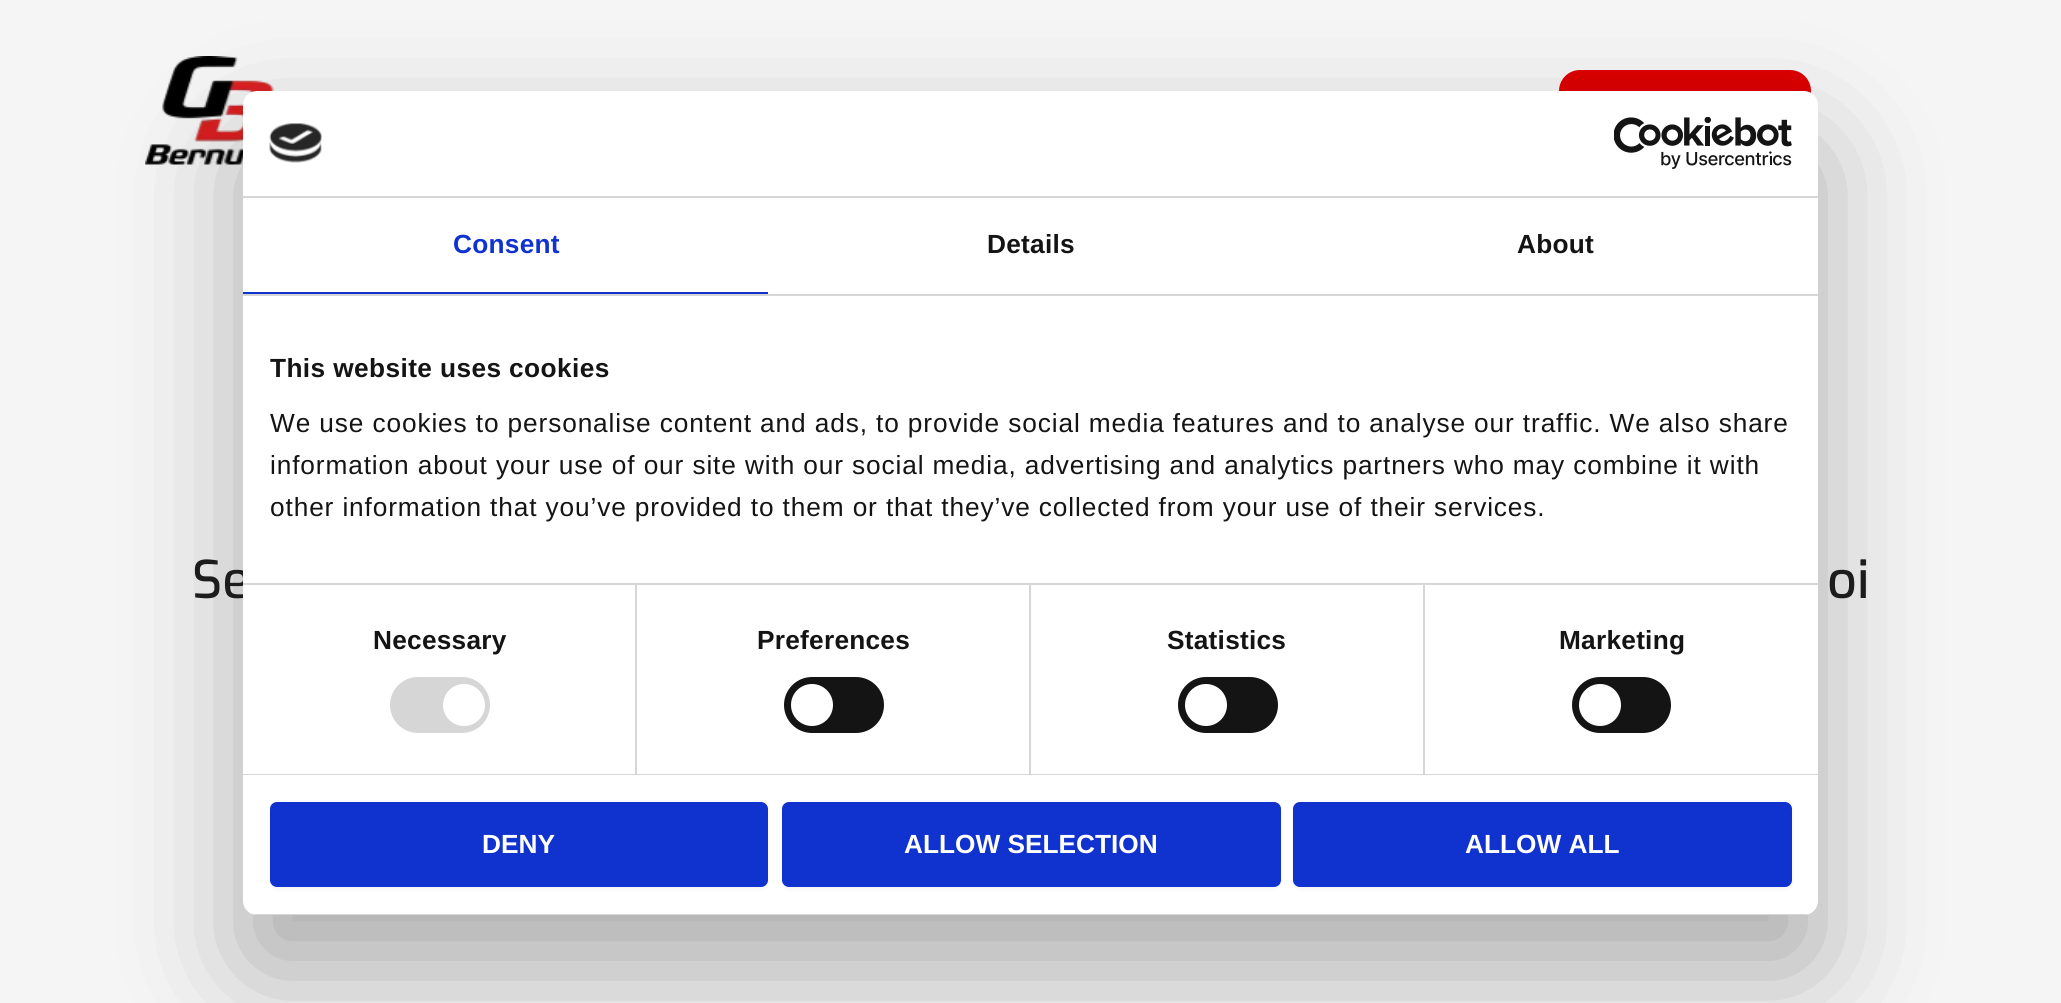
import math
import cairocffi as cairo

surface = cairo.ImageSurface(cairo.FORMAT_RGB24, 2061, 1003)
cr = cairo.Context(surface)
options = cairo.FontOptions()
options.set_hint_metrics(cairo.HINT_METRICS_OFF)
options.set_hint_style(cairo.HINT_STYLE_NONE)
cr.set_font_options(options)
cr.set_miter_limit(4)


def use_color(code):
    cr.set_source_rgb(*(v / 255 for v in bytes.fromhex(code[-6:])))


def spaced_text(x, y, s, letter, word):
    cr.move_to(x, y)
    for ch in s:
        cr.show_text(ch)
        cr.rel_move_to(letter + word * (ch == ' '), 0)


def round_rect(x, y, w, h, r):
    cr.new_sub_path()
    for i, (u, v) in enumerate([(x + w - r, y + h - r), (x + r, y + h - r), (x + r, y + r), (x + w - r, y + r)]):
        cr.arc(u, v, r, i * math.pi / 2, (i + 1) * math.pi / 2)
    cr.close_path()


def shadow(x, y, w, h, r, blur, alpha):
    cr.push_group_with_content(cairo.CONTENT_ALPHA)
    cr.set_operator(cairo.OPERATOR_SOURCE)
    for i in range(15, -16, -2):
        e = blur * i / 6
        if min(w, h) + 2 * e > 0:
            cr.set_source_rgba(0, 0, 0, alpha * math.erfc((i - 1) / 8.5) / 2)
            round_rect(x - e, y - e, w + 2 * e, h + 2 * e, max(0, min(r + e + blur * .6, min(w, h) / 2 + e)))
            cr.fill()
    cr.mask(cr.pop_group())


def picture(path, x, y, w, h):
    cr.save()
    cr.set_source_surface(cairo.ImageSurface.create_from_png(path), x, y)
    cr.rectangle(x, y, w, h)
    cr.fill()
    cr.restore()


use_color("#f5f5f5")
cr.paint()
picture("img3.png", 145, 56, 130, 109)
use_color("#dd0000")
round_rect(1559, 70, 252, 81, 21)
cr.fill()
use_color("#000000")
shadow(243, 147, 1575, 824, 14, 59.5, 0.3)
cr.select_font_face("Exo Medium")
cr.set_font_size(52)
use_color("#1c1c1c")
cr.move_to(192, 598)
cr.show_text("Se")
use_color("#ffffff")
round_rect(243, 91, 1575, 824, 14)
cr.fill()
use_color("#d6d6d6")
cr.rectangle(243, 196, 1575, 2)
cr.fill()
picture("img1.png", 269, 123, 53, 40)
picture("img2.png", 1614, 117, 178, 52)
cr.rectangle(243, 294, 1575, 2)
cr.fill()
use_color("#1032cf")
cr.rectangle(243, 292, 525, 2)
cr.fill()
cr.select_font_face("Liberation Sans", cairo.FONT_SLANT_NORMAL, cairo.FONT_WEIGHT_BOLD)
cr.set_font_size(26.25)
spaced_text(453, 253, "Consent", 0.25, 0)
use_color("#141414")
spaced_text(987, 253, "Details", 0.25, 0)
spaced_text(1517, 253, "About", 0.25, 0)
use_color("#d6d6d6")
cr.rectangle(243, 583, 1575, 2)
cr.fill()
use_color("#141414")
spaced_text(270, 377, "This website uses cookies", 0.4, 0)
cr.select_font_face("Liberation Sans")
spaced_text(270, 432, "We use cookies to personalise content and ads, to provide social media features and to analyse our traffic. We also share", 0.88, 0)
spaced_text(270, 474, "information about your use of our site with our social media, advertising and analytics partners who may combine it with", 0.88, 0)
spaced_text(270, 516, "other information that you’ve provided to them or that they’ve collected from your use of their services.", 0.88, 0)
use_color("#d6d6d6")
cr.rectangle(243, 774, 1575, 1)
cr.fill()
cr.rectangle(635, 585, 2, 189)
cr.fill()
cr.select_font_face("Liberation Sans", cairo.FONT_SLANT_NORMAL, cairo.FONT_WEIGHT_BOLD)
use_color("#141414")
spaced_text(373, 649, "Necessary", 0.25, 0)
use_color("#d6d6d6")
round_rect(390, 677, 100, 56, 28)
cr.fill()
use_color("#ffffff")
cr.arc(464, 705, 21, 0, 2 * math.pi)
cr.fill()
use_color("#d6d6d6")
cr.rectangle(1029, 585, 2, 189)
cr.fill()
use_color("#141414")
spaced_text(757, 649, "Preferences", 0.25, 0)
round_rect(784, 677, 100, 56, 28)
cr.fill()
use_color("#ffffff")
cr.arc(812, 705, 21, 0, 2 * math.pi)
cr.fill()
use_color("#d6d6d6")
cr.rectangle(1423, 585, 2, 189)
cr.fill()
use_color("#141414")
spaced_text(1167, 649, "Statistics", 0.25, 0)
round_rect(1178, 677, 100, 56, 28)
cr.fill()
use_color("#ffffff")
cr.arc(1206, 705, 21, 0, 2 * math.pi)
cr.fill()
use_color("#141414")
spaced_text(1559, 649, "Marketing", 0.25, 0)
round_rect(1572, 677, 99, 56, 28)
cr.fill()
use_color("#ffffff")
cr.arc(1600, 705, 21, 0, 2 * math.pi)
cr.fill()
cr.save()
round_rect(243, 91, 1575, 824, 14)
cr.clip()
use_color("#d6d6d6")
cr.rectangle(252, 914, 1557, 1)
cr.fill()
cr.restore()
use_color("#000000")
shadow(270, 803, 498, 86, 7, 2, 0.05)
use_color("#1032cf")
round_rect(272, 804, 494, 81, 5)
cr.fill_preserve()
cr.set_line_width(4)
cr.stroke()
use_color("#ffffff")
cr.move_to(482, 853)
cr.show_text("DENY")
use_color("#000000")
shadow(782, 803, 499, 86, 7, 2, 0.05)
use_color("#1032cf")
round_rect(784, 804, 495, 81, 5)
cr.fill_preserve()
cr.stroke()
use_color("#ffffff")
cr.move_to(904, 853)
cr.show_text("ALLOW SELECTION")
use_color("#000000")
shadow(1293, 803, 499, 86, 7, 2, 0.05)
use_color("#1032cf")
round_rect(1295, 804, 495, 81, 5)
cr.fill_preserve()
cr.stroke()
use_color("#ffffff")
cr.move_to(1465, 853)
cr.show_text("ALLOW ALL")
cr.select_font_face("Exo Medium")
cr.set_font_size(52)
use_color("#1c1c1c")
cr.move_to(1827, 598)
cr.show_text("oi")
surface.write_to_png("result.png")
